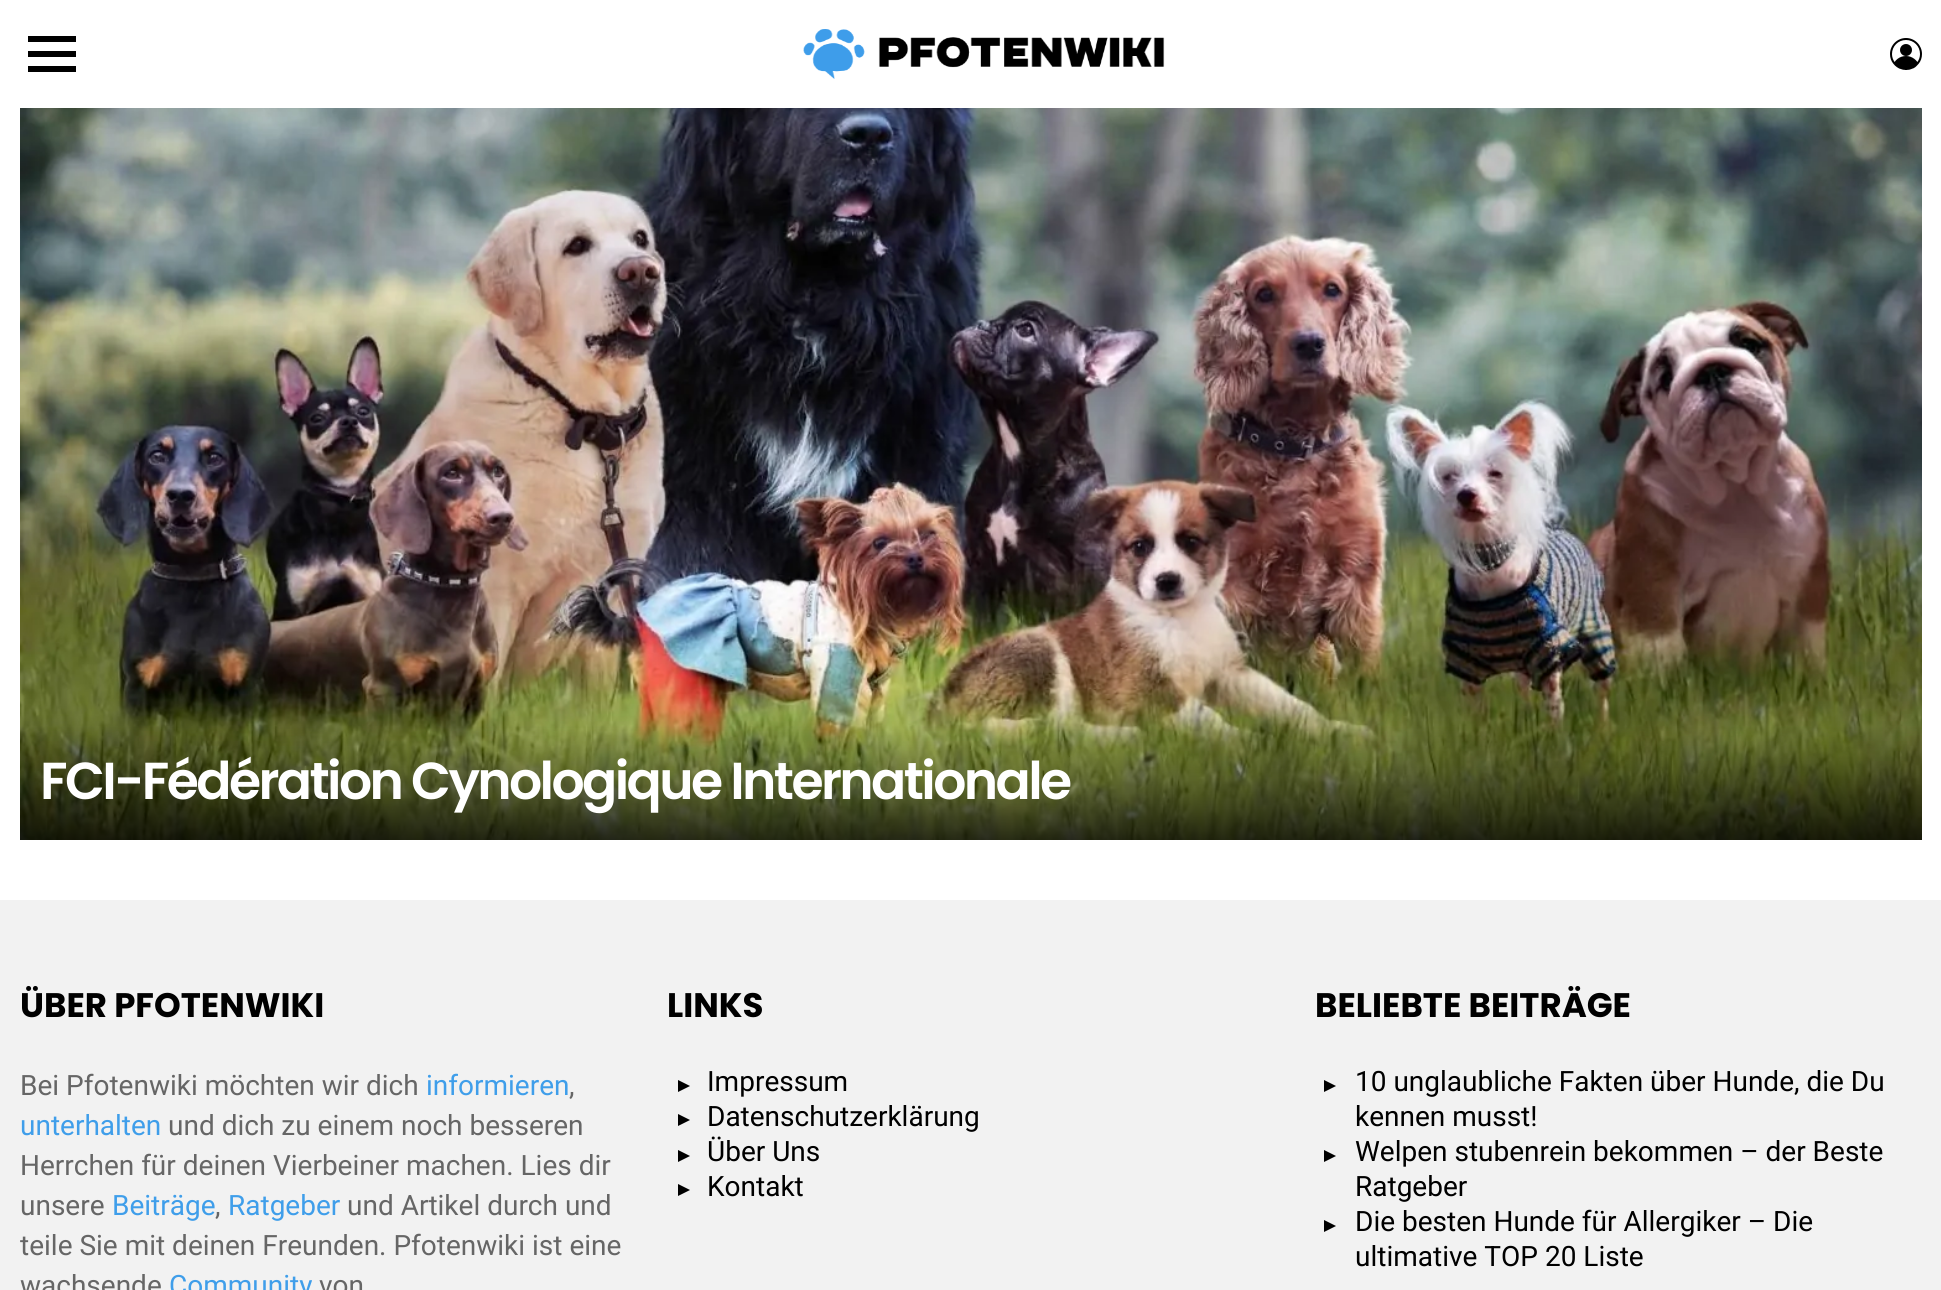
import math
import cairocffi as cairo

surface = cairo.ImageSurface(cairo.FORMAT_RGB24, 1941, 1290)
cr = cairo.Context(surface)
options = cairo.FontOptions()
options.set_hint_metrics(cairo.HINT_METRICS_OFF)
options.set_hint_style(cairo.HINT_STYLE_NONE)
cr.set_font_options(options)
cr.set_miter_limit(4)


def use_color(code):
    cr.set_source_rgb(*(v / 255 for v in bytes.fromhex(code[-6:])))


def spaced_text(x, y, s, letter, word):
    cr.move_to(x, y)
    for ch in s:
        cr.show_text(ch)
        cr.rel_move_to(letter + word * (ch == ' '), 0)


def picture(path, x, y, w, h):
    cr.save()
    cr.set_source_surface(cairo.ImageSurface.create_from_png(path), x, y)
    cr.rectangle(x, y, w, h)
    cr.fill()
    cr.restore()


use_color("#ffffff")
cr.paint()
use_color("#000000")
cr.new_path()
cr.move_to(28, 36)
cr.line_to(76, 36)
cr.line_to(76, 42)
cr.line_to(28, 42)
cr.close_path()
cr.move_to(28, 51)
cr.line_to(76, 51)
cr.line_to(76, 57)
cr.line_to(28, 57)
cr.close_path()
cr.move_to(28, 66)
cr.line_to(76, 66)
cr.line_to(76, 72)
cr.line_to(28, 72)
cr.close_path()
cr.fill()
picture("img1.png", 803, 29, 362, 50)
picture("img2.png", 1890, 38, 32, 32)
picture("img3.png", 20, 108, 1902, 732)
cr.select_font_face("Poppins SemiBold")
cr.set_font_size(52)
use_color("#ffffff")
spaced_text(40, 799, "FCI-Fédération Cynologique Internationale", -2.6, 0)
use_color("#f2f2f2")
cr.rectangle(0, 900, 1941, 390)
cr.fill()
cr.select_font_face("Poppins", cairo.FONT_SLANT_NORMAL, cairo.FONT_WEIGHT_BOLD)
cr.set_font_size(34)
use_color("#000000")
cr.move_to(20, 1017)
cr.show_text("ÜBER PFOTENWIKI")
cr.select_font_face("Roboto")
cr.set_font_size(28)
use_color("#666666")
cr.move_to(20, 1095)
cr.show_text("Bei Pfotenwiki möchten wir dich")
use_color("#3f9eea")
cr.move_to(426, 1095)
cr.show_text("informieren")
use_color("#666666")
cr.move_to(569, 1095)
cr.show_text(",")
use_color("#3f9eea")
cr.move_to(20, 1135)
cr.show_text("unterhalten")
use_color("#666666")
cr.move_to(168, 1135)
cr.show_text("und dich zu einem noch besseren")
cr.move_to(20, 1175)
cr.show_text("Herrchen für deinen Vierbeiner machen. Lies dir")
cr.move_to(20, 1215)
cr.show_text("unsere")
use_color("#3f9eea")
cr.move_to(112, 1215)
cr.show_text("Beiträge")
use_color("#666666")
cr.move_to(215, 1215)
cr.show_text(",")
use_color("#3f9eea")
cr.move_to(228, 1215)
cr.show_text("Ratgeber")
use_color("#666666")
cr.move_to(347, 1215)
cr.show_text("und Artikel durch und")
cr.move_to(20, 1255)
cr.show_text("teile Sie mit deinen Freunden. Pfotenwiki ist eine")
cr.move_to(20, 1295)
cr.show_text("wachsende")
use_color("#3f9eea")
cr.move_to(169, 1295)
cr.show_text("Community")
use_color("#666666")
cr.move_to(319, 1295)
cr.show_text("von")
cr.select_font_face("Poppins", cairo.FONT_SLANT_NORMAL, cairo.FONT_WEIGHT_BOLD)
cr.set_font_size(34)
use_color("#000000")
cr.move_to(667, 1017)
cr.show_text("LINKS")
cr.new_path()
cr.move_to(690, 1086)
cr.line_to(678, 1080)
cr.line_to(678, 1092)
cr.close_path()
cr.fill()
cr.select_font_face("Roboto")
cr.set_font_size(28)
cr.move_to(707, 1091)
cr.show_text("Impressum")
cr.new_path()
cr.move_to(690, 1120)
cr.line_to(678, 1114)
cr.line_to(678, 1126)
cr.close_path()
cr.fill()
cr.move_to(707, 1126)
cr.show_text("Datenschutzerklärung")
cr.new_path()
cr.move_to(690, 1156)
cr.line_to(678, 1150)
cr.line_to(678, 1162)
cr.close_path()
cr.fill()
cr.move_to(707, 1161)
cr.show_text("Über Uns")
cr.new_path()
cr.move_to(690, 1190)
cr.line_to(678, 1184)
cr.line_to(678, 1196)
cr.close_path()
cr.fill()
cr.move_to(707, 1196)
cr.show_text("Kontakt")
cr.select_font_face("Poppins", cairo.FONT_SLANT_NORMAL, cairo.FONT_WEIGHT_BOLD)
cr.set_font_size(34)
cr.move_to(1315, 1017)
cr.show_text("BELIEBTE BEITRÄGE")
cr.new_path()
cr.move_to(1336, 1086)
cr.line_to(1324, 1080)
cr.line_to(1324, 1092)
cr.close_path()
cr.fill()
cr.select_font_face("Roboto")
cr.set_font_size(28)
cr.move_to(1355, 1091)
cr.show_text("10 unglaubliche Fakten über Hunde, die Du")
cr.move_to(1355, 1126)
cr.show_text("kennen musst!")
cr.new_path()
cr.move_to(1336, 1156)
cr.line_to(1324, 1150)
cr.line_to(1324, 1162)
cr.close_path()
cr.fill()
cr.move_to(1355, 1161)
cr.show_text("Welpen stubenrein bekommen – der Beste")
cr.move_to(1355, 1196)
cr.show_text("Ratgeber")
cr.new_path()
cr.move_to(1336, 1226)
cr.line_to(1324, 1220)
cr.line_to(1324, 1232)
cr.close_path()
cr.fill()
cr.move_to(1355, 1231)
cr.show_text("Die besten Hunde für Allergiker – Die")
cr.move_to(1355, 1266)
cr.show_text("ultimative TOP 20 Liste")
surface.write_to_png("result.png")
